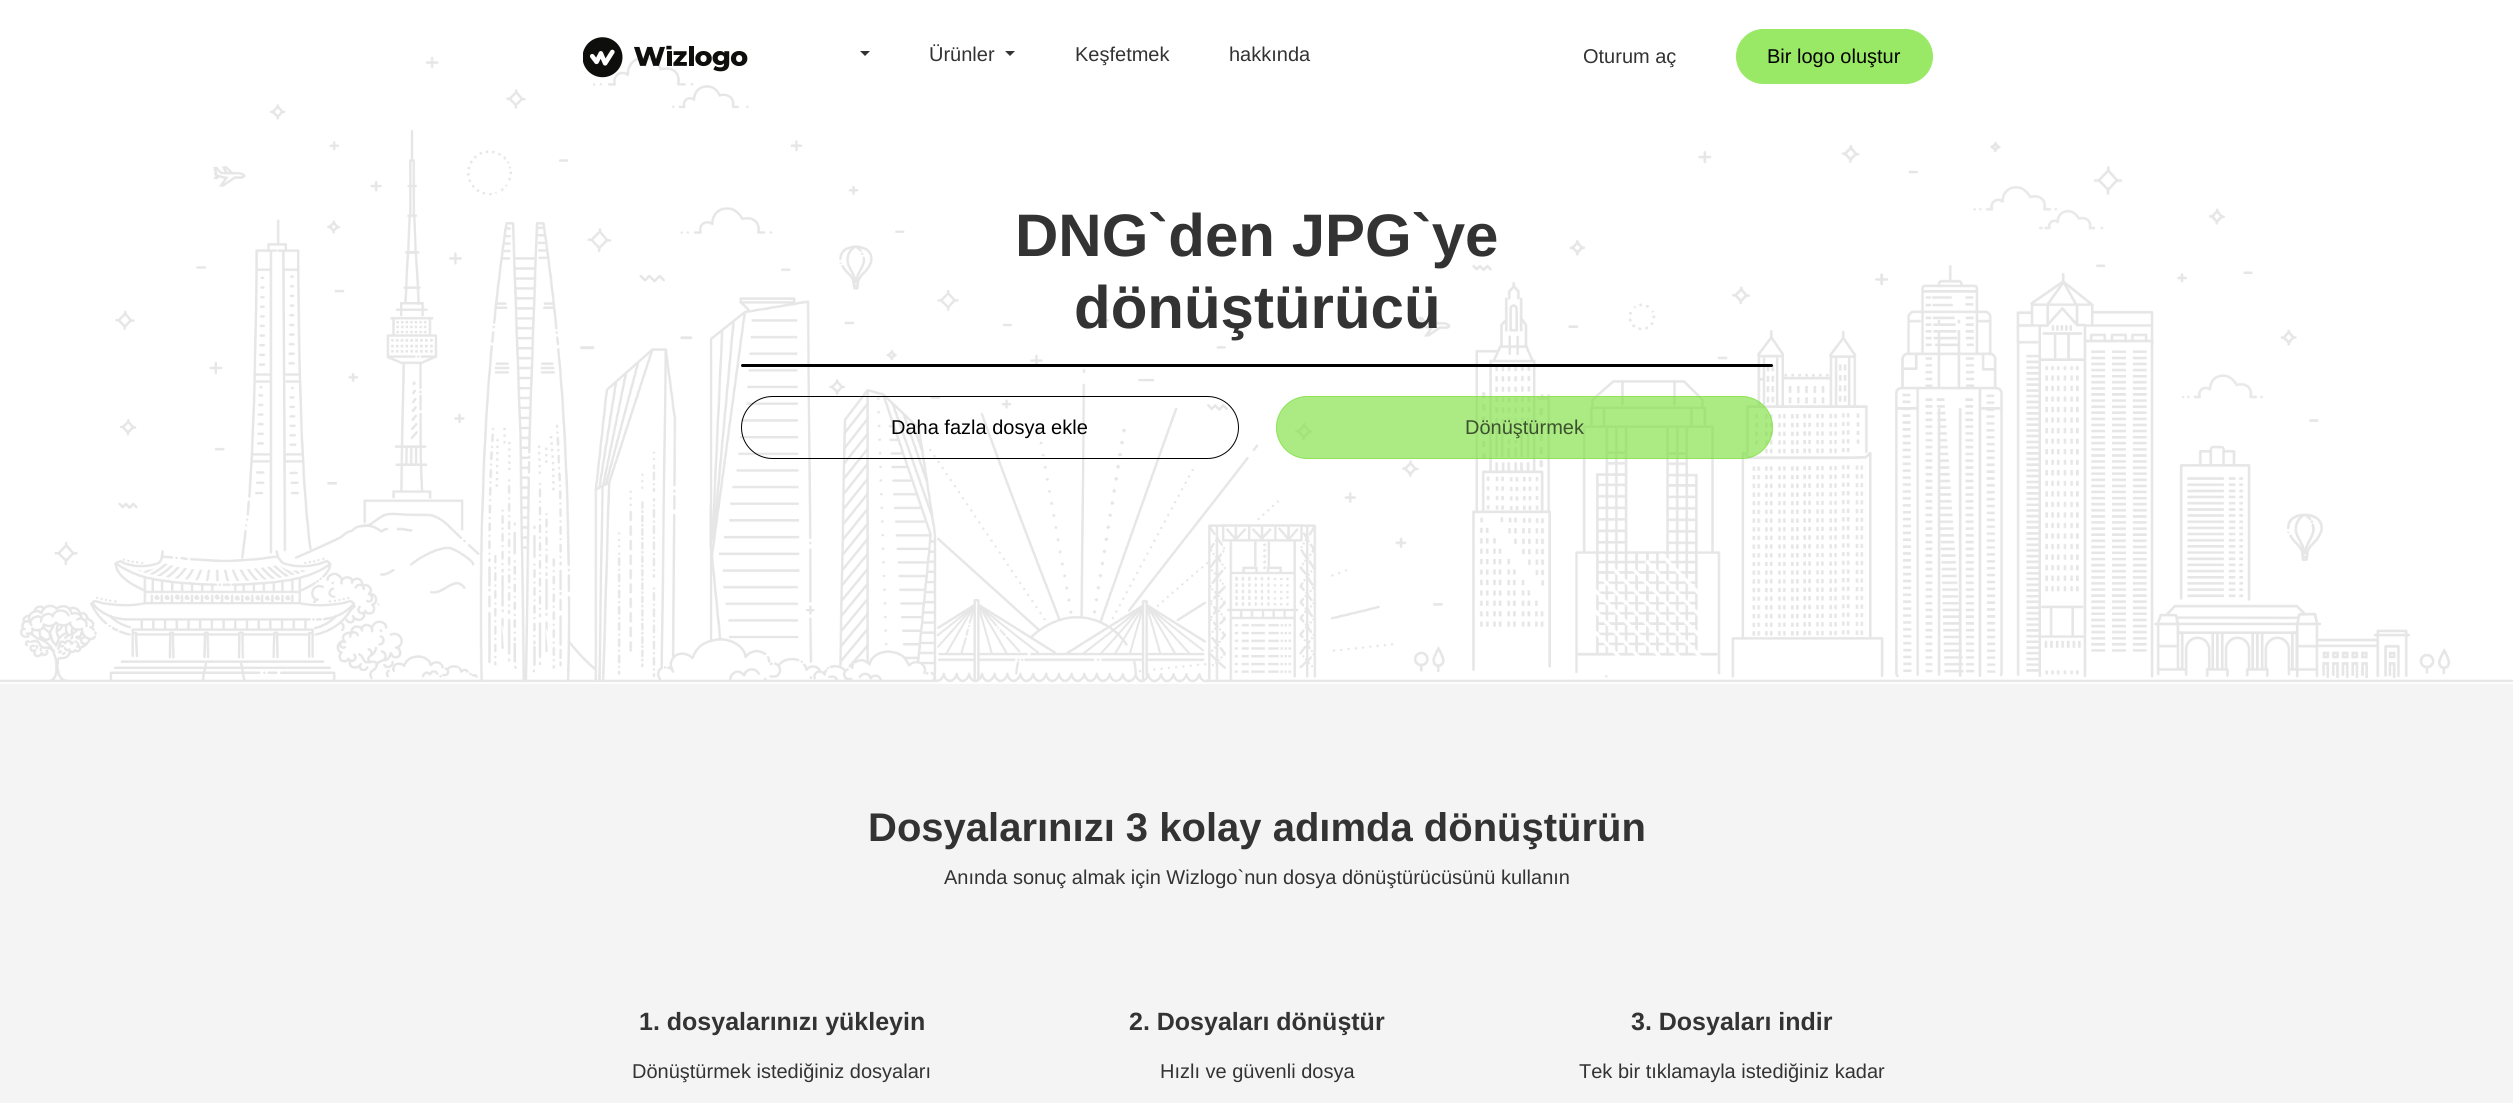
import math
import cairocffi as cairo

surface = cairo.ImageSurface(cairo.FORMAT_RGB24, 2513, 1103)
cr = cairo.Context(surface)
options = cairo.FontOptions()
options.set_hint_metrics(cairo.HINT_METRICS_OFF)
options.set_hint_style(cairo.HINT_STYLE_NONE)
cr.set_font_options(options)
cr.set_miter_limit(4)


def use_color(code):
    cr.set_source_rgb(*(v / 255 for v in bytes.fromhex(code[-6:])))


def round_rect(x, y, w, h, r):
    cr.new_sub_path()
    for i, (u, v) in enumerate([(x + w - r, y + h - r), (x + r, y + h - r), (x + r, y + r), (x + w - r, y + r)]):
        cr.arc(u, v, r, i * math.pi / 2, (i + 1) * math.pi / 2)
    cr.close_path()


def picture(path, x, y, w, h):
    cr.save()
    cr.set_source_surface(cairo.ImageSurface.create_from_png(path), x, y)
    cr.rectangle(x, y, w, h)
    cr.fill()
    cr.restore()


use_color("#ffffff")
cr.paint()
picture("img2.png", 0, 56, 2513, 627)
picture("img1.png", 583, 37, 165, 41)
use_color("#333333")
cr.new_path()
cr.move_to(860, 51)
cr.line_to(870, 51)
cr.line_to(865, 56)
cr.close_path()
cr.fill()
cr.select_font_face("Liberation Sans")
cr.set_font_size(20)
cr.move_to(929, 61)
cr.show_text("Ürünler")
cr.new_path()
cr.move_to(1005, 51)
cr.line_to(1015, 51)
cr.line_to(1010, 56)
cr.close_path()
cr.fill()
cr.move_to(1075, 61)
cr.show_text("Keşfetmek")
cr.move_to(1229, 61)
cr.show_text("hakkında")
cr.move_to(1583, 63)
cr.show_text("Oturum aç")
use_color("#99e966")
round_rect(1736.5, 29.5, 196, 54, 27)
cr.fill_preserve()
cr.set_line_width(1)
cr.stroke()
use_color("#000000")
cr.move_to(1767, 63)
cr.show_text("Bir logo oluştur")
cr.select_font_face("Liberation Sans", cairo.FONT_SLANT_NORMAL, cairo.FONT_WEIGHT_BOLD)
cr.set_font_size(60)
use_color("#333333")
cr.move_to(1015, 256)
cr.show_text("DNG`den JPG`ye")
cr.move_to(1074, 328)
cr.show_text("dönüştürücü")
use_color("#000000")
round_rect(741, 364, 1032, 3, 1.5)
cr.fill()
round_rect(741.5, 396.5, 497, 62, 31)
cr.stroke()
cr.select_font_face("Liberation Sans")
cr.set_font_size(20)
cr.move_to(891, 434)
cr.show_text("Daha fazla dosya ekle")
cr.set_source_rgba(0.502, 0.882, 0.259, 0.65)
round_rect(1276, 396, 497, 63, 31.5)
cr.fill()
round_rect(1276.5, 396.5, 496, 62, 31)
cr.stroke()
use_color("#3c522e")
cr.move_to(1465, 434)
cr.show_text("Dönüştürmek")
use_color("#f4f4f4")
cr.rectangle(0, 684, 2513, 419)
cr.fill()
cr.select_font_face("Liberation Sans", cairo.FONT_SLANT_NORMAL, cairo.FONT_WEIGHT_BOLD)
cr.set_font_size(40)
use_color("#333333")
cr.move_to(868, 841)
cr.show_text("Dosyalarınızı 3 kolay adımda dönüştürün")
cr.select_font_face("Liberation Sans")
cr.set_font_size(20)
cr.move_to(944, 884)
cr.show_text("Anında sonuç almak için Wizlogo`nun dosya dönüştürücüsünü kullanın")
cr.select_font_face("Liberation Sans", cairo.FONT_SLANT_NORMAL, cairo.FONT_WEIGHT_BOLD)
cr.set_font_size(25)
cr.move_to(639, 1030)
cr.show_text("1. dosyalarınızı yükleyin")
cr.select_font_face("Liberation Sans")
cr.set_font_size(20)
cr.move_to(632, 1078)
cr.show_text("Dönüştürmek istediğiniz dosyaları")
cr.select_font_face("Liberation Sans", cairo.FONT_SLANT_NORMAL, cairo.FONT_WEIGHT_BOLD)
cr.set_font_size(25)
cr.move_to(1129, 1030)
cr.show_text("2. Dosyaları dönüştür")
cr.select_font_face("Liberation Sans")
cr.set_font_size(20)
cr.move_to(1160, 1078)
cr.show_text("Hızlı ve güvenli dosya")
cr.select_font_face("Liberation Sans", cairo.FONT_SLANT_NORMAL, cairo.FONT_WEIGHT_BOLD)
cr.set_font_size(25)
cr.move_to(1631, 1030)
cr.show_text("3. Dosyaları indir")
cr.select_font_face("Liberation Sans")
cr.set_font_size(20)
cr.move_to(1579, 1078)
cr.show_text("Tek bir tıklamayla istediğiniz kadar")
surface.write_to_png("result.png")
